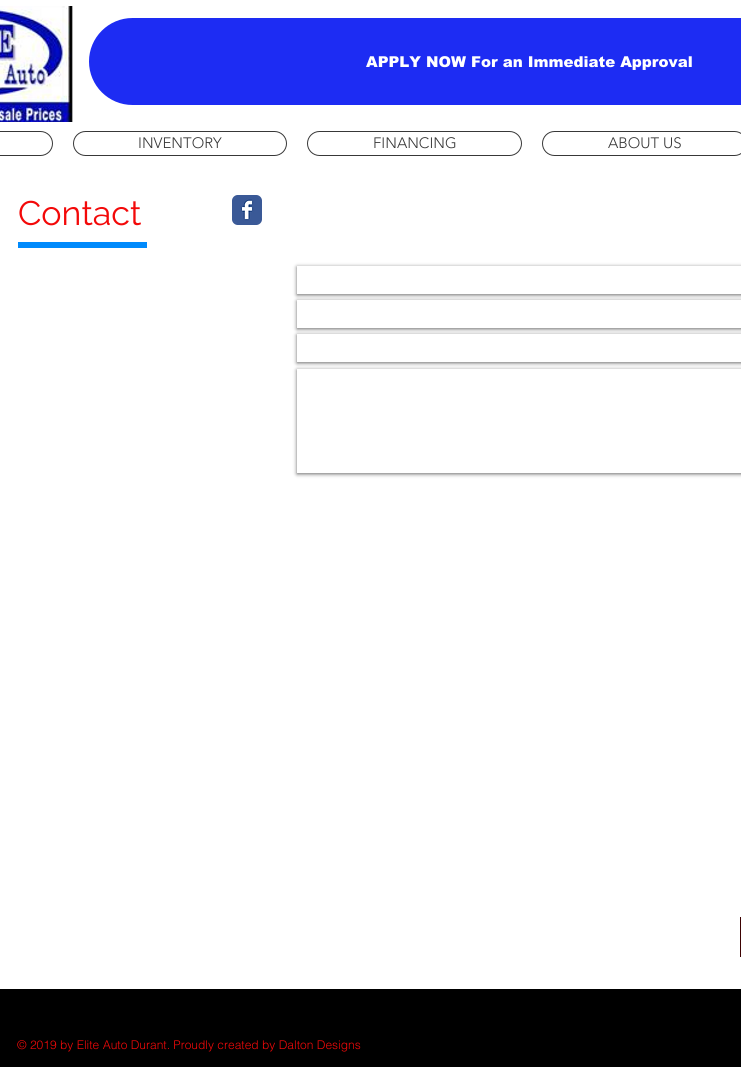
import math
import cairocffi as cairo

surface = cairo.ImageSurface(cairo.FORMAT_RGB24, 741, 1067)
cr = cairo.Context(surface)
options = cairo.FontOptions()
options.set_hint_metrics(cairo.HINT_METRICS_OFF)
options.set_hint_style(cairo.HINT_STYLE_NONE)
cr.set_font_options(options)
cr.set_miter_limit(4)


def use_color(code):
    cr.set_source_rgb(*(v / 255 for v in bytes.fromhex(code[-6:])))


def round_rect(x, y, w, h, r):
    cr.new_sub_path()
    for i, (u, v) in enumerate([(x + w - r, y + h - r), (x + r, y + h - r), (x + r, y + r), (x + w - r, y + r)]):
        cr.arc(u, v, r, i * math.pi / 2, (i + 1) * math.pi / 2)
    cr.close_path()


def shadow(x, y, w, h, r, blur, alpha):
    cr.push_group_with_content(cairo.CONTENT_ALPHA)
    cr.set_operator(cairo.OPERATOR_SOURCE)
    for i in range(15, -16, -2):
        e = blur * i / 6
        if min(w, h) + 2 * e > 0:
            cr.set_source_rgba(0, 0, 0, alpha * math.erfc((i - 1) / 8.5) / 2)
            round_rect(x - e, y - e, w + 2 * e, h + 2 * e, max(0, min(r + e + blur * .6, min(w, h) / 2 + e)))
            cr.fill()
    cr.mask(cr.pop_group())


def picture(path, x, y, w, h):
    cr.save()
    cr.set_source_surface(cairo.ImageSurface.create_from_png(path), x, y)
    cr.rectangle(x, y, w, h)
    cr.fill()
    cr.restore()


use_color("#ffffff")
cr.paint()
picture("img1.png", 0, 6, 73, 116)
use_color("#1d2cf3")
round_rect(89, 18, 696, 87, 43.5)
cr.fill()
cr.select_font_face("arial Black")
cr.set_font_size(15)
use_color("#ffffff")
cr.move_to(366, 67)
cr.show_text("APPLY NOW For an Immediate Approval")
round_rect(-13.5, 131.5, 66, 24, 12)
use_color("#383838")
cr.set_line_width(1)
cr.stroke()
round_rect(73.5, 131.5, 213, 24, 12)
cr.stroke()
cr.select_font_face("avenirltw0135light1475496 Light")
cr.move_to(138, 148)
cr.show_text("INVENTORY")
round_rect(307.5, 131.5, 214, 24, 12)
cr.stroke()
cr.move_to(373, 148)
cr.show_text("FINANCING")
round_rect(542.5, 131.5, 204, 24, 12)
cr.stroke()
cr.move_to(608, 148)
cr.show_text("ABOUT US")
cr.select_font_face("Raleway")
cr.set_font_size(34)
use_color("#f30909")
cr.move_to(18, 225)
cr.show_text("Contact")
picture("img2.png", 232, 195, 30, 30)
use_color("#008afc")
cr.rectangle(18, 242, 129, 6)
cr.fill()
cr.save()
cr.set_fill_rule(cairo.FILL_RULE_EVEN_ODD)
cr.new_path()
cr.move_to(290, 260)
cr.line_to(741, 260)
cr.line_to(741, 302)
cr.line_to(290, 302)
cr.close_path()
cr.move_to(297, 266)
cr.line_to(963, 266)
cr.line_to(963, 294)
cr.line_to(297, 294)
cr.close_path()
cr.clip()
use_color("#000000")
shadow(297, 267, 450, 28, 0, 2, 0.6)
cr.restore()
cr.save()
cr.set_fill_rule(cairo.FILL_RULE_EVEN_ODD)
cr.new_path()
cr.move_to(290, 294)
cr.line_to(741, 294)
cr.line_to(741, 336)
cr.line_to(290, 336)
cr.close_path()
cr.move_to(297, 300)
cr.line_to(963, 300)
cr.line_to(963, 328)
cr.line_to(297, 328)
cr.close_path()
cr.clip()
use_color("#000000")
shadow(297, 301, 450, 28, 0, 2, 0.6)
cr.restore()
cr.save()
cr.set_fill_rule(cairo.FILL_RULE_EVEN_ODD)
cr.new_path()
cr.move_to(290, 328)
cr.line_to(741, 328)
cr.line_to(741, 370)
cr.line_to(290, 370)
cr.close_path()
cr.move_to(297, 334)
cr.line_to(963, 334)
cr.line_to(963, 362)
cr.line_to(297, 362)
cr.close_path()
cr.clip()
use_color("#000000")
shadow(297, 335, 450, 28, 0, 2, 0.6)
cr.restore()
cr.save()
cr.set_fill_rule(cairo.FILL_RULE_EVEN_ODD)
cr.new_path()
cr.move_to(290, 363)
cr.line_to(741, 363)
cr.line_to(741, 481)
cr.line_to(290, 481)
cr.close_path()
cr.move_to(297, 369)
cr.line_to(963, 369)
cr.line_to(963, 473)
cr.line_to(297, 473)
cr.close_path()
cr.clip()
use_color("#000000")
shadow(297, 370, 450, 104, 0, 2, 0.6)
cr.restore()
use_color("#3d0202")
cr.rectangle(740, 917, 1, 40)
cr.fill()
use_color("#000000")
cr.rectangle(0, 989, 741, 78)
cr.fill()
cr.select_font_face("helvetica Light")
cr.set_font_size(12)
use_color("#f30909")
cr.move_to(17, 1049)
cr.show_text("© 2019 by Elite Auto Durant. Proudly created by Dalton Designs")
surface.write_to_png("result.png")
